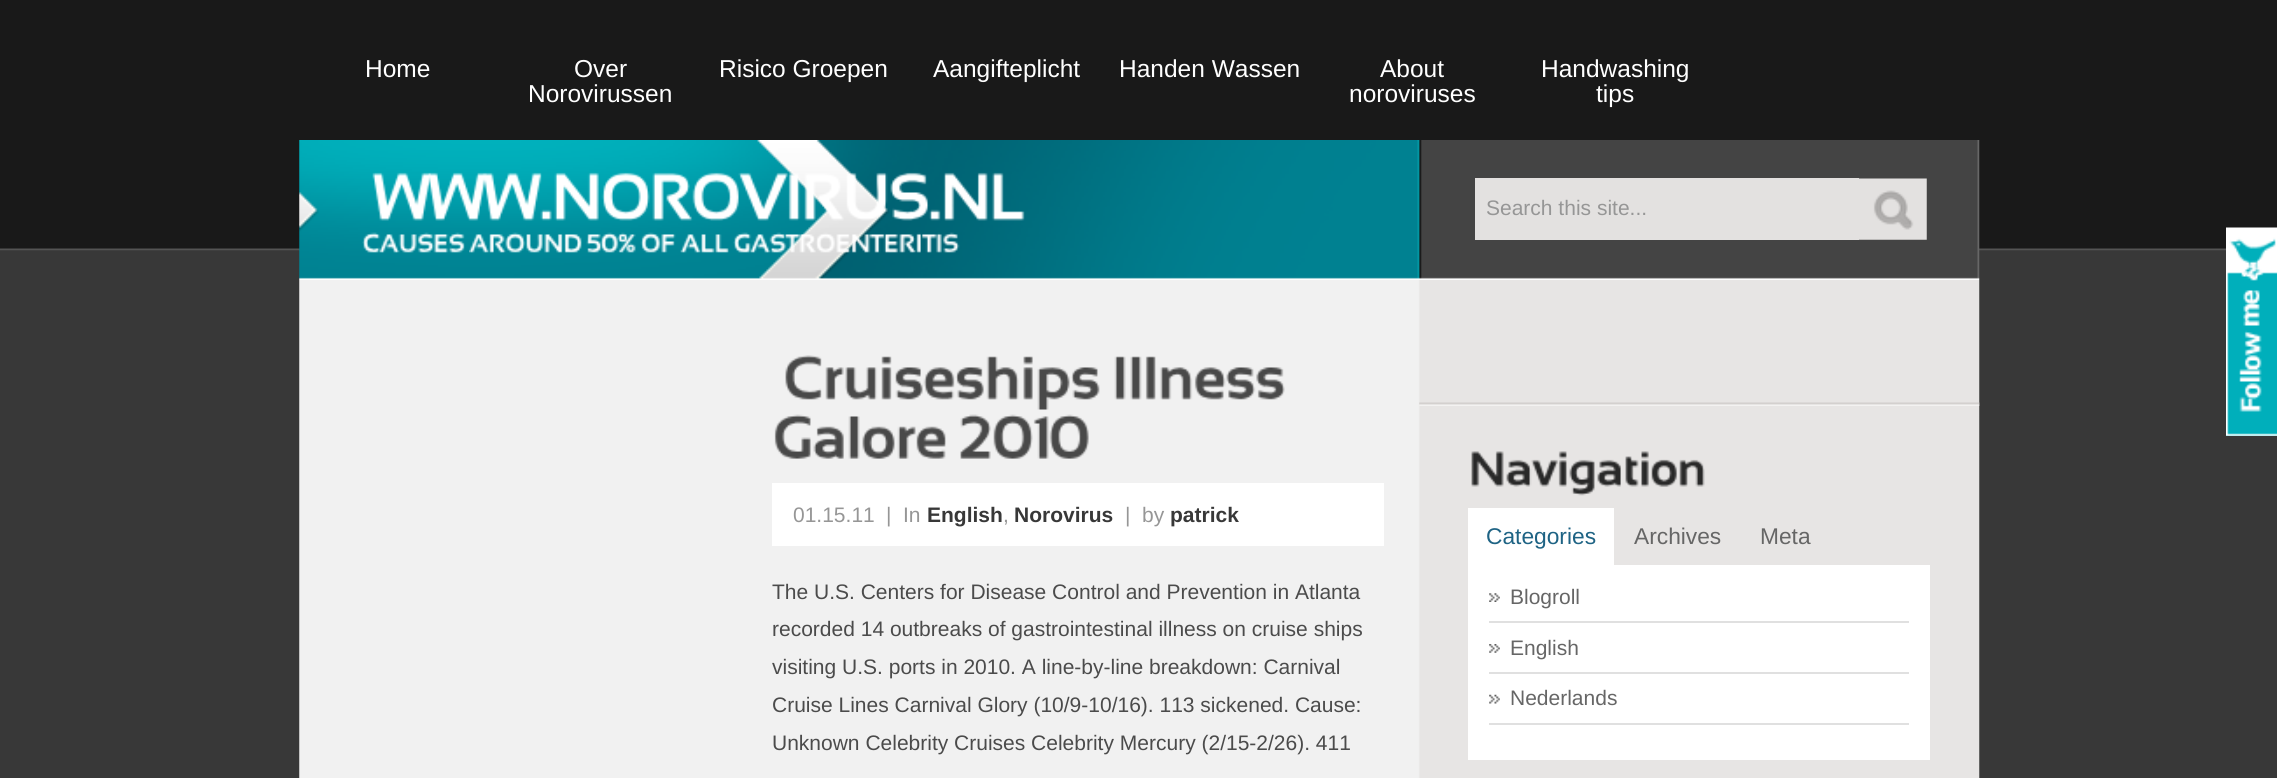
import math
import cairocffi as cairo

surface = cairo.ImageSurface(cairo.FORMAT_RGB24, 2277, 778)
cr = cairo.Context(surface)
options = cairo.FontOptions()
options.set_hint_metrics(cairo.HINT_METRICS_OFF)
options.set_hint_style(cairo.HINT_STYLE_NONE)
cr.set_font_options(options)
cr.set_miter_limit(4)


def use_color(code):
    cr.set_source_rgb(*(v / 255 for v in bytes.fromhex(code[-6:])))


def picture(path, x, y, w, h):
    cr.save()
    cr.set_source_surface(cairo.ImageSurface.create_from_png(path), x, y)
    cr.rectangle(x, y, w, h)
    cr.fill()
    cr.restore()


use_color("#383838")
cr.paint()
picture("img1.png", 0, 0, 2277, 251)
cr.select_font_face("Liberation Sans")
cr.set_font_size(24.5)
use_color("#ffffff")
cr.move_to(365, 77)
cr.show_text("Home")
cr.move_to(574, 77)
cr.show_text("Over")
cr.move_to(528, 102)
cr.show_text("Norovirussen")
cr.move_to(719, 77)
cr.show_text("Risico Groepen")
cr.move_to(933, 77)
cr.show_text("Aangifteplicht")
cr.move_to(1119, 77)
cr.show_text("Handen Wassen")
cr.move_to(1380, 77)
cr.show_text("About")
cr.move_to(1349, 102)
cr.show_text("noroviruses")
cr.move_to(1541, 77)
cr.show_text("Handwashing")
cr.move_to(1596, 102)
cr.show_text("tips")
picture("img2.png", 299, 140, 1681, 140)
picture("img3.png", 372, 172, 653, 49)
picture("img4.png", 362, 232, 103, 21)
picture("img5.png", 469, 232, 113, 21)
picture("img6.png", 586, 232, 50, 21)
picture("img7.png", 640, 232, 36, 21)
picture("img8.png", 680, 234, 49, 19)
picture("img9.png", 733, 232, 227, 21)
use_color("#e3e1e0")
cr.rectangle(1475, 178, 384, 62)
cr.fill()
cr.set_font_size(21)
use_color("#969696")
cr.move_to(1486, 215)
cr.show_text("Search this site...")
picture("img10.png", 1859, 178, 68, 62)
picture("img11.png", 299, 280, 1681, 498)
picture("img12.png", 785, 355, 315, 55)
picture("img13.png", 1114, 356, 171, 44)
picture("img14.png", 774, 414, 172, 45)
picture("img15.png", 960, 414, 129, 45)
use_color("#ffffff")
cr.rectangle(772, 483, 612, 63)
cr.fill()
use_color("#969696")
cr.move_to(793, 522)
cr.show_text("01.15.11")
cr.move_to(886, 522)
cr.show_text("|")
cr.move_to(903, 522)
cr.show_text("In")
cr.select_font_face("Liberation Sans", cairo.FONT_SLANT_NORMAL, cairo.FONT_WEIGHT_BOLD)
use_color("#383838")
cr.move_to(927, 522)
cr.show_text("English")
cr.select_font_face("Liberation Sans")
use_color("#969696")
cr.move_to(1003, 522)
cr.show_text(",")
cr.select_font_face("Liberation Sans", cairo.FONT_SLANT_NORMAL, cairo.FONT_WEIGHT_BOLD)
use_color("#383838")
cr.move_to(1014, 522)
cr.show_text("Norovirus")
cr.select_font_face("Liberation Sans")
use_color("#969696")
cr.move_to(1125, 522)
cr.show_text("|  by")
cr.select_font_face("Liberation Sans", cairo.FONT_SLANT_NORMAL, cairo.FONT_WEIGHT_BOLD)
use_color("#383838")
cr.move_to(1170, 522)
cr.show_text("patrick")
cr.select_font_face("Liberation Sans")
use_color("#4b4b4b")
cr.move_to(772, 599)
cr.show_text("The U.S. Centers for Disease Control and Prevention in Atlanta")
cr.move_to(772, 636)
cr.show_text("recorded 14 outbreaks of gastrointestinal illness on cruise ships")
cr.move_to(772, 674)
cr.show_text("visiting U.S. ports in 2010. A line-by-line breakdown: Carnival")
cr.move_to(772, 712)
cr.show_text("Cruise Lines Carnival Glory (10/9-10/16). 113 sickened. Cause:")
cr.move_to(772, 750)
cr.show_text("Unknown Celebrity Cruises Celebrity Mercury (2/15-2/26). 411")
picture("img16.png", 1419, 402, 561, 4)
picture("img17.png", 1471, 451, 234, 45)
use_color("#ffffff")
cr.rectangle(1468, 508, 146, 57)
cr.fill()
cr.set_font_size(22.75)
use_color("#1e6384")
cr.move_to(1486, 544)
cr.show_text("Categories")
use_color("#666666")
cr.move_to(1634, 544)
cr.show_text("Archives")
cr.move_to(1760, 544)
cr.show_text("Meta")
use_color("#ffffff")
cr.rectangle(1468, 565, 462, 195)
cr.fill()
picture("img18.png", 1489, 593, 11, 9)
use_color("#e0e0e0")
cr.rectangle(1489, 621, 420, 2)
cr.fill()
cr.set_font_size(21)
use_color("#666666")
cr.move_to(1510, 604)
cr.show_text("Blogroll")
picture("img19.png", 1489, 644, 11, 9)
use_color("#e0e0e0")
cr.rectangle(1489, 672, 420, 2)
cr.fill()
use_color("#666666")
cr.move_to(1510, 655)
cr.show_text("English")
picture("img20.png", 1489, 694, 11, 10)
use_color("#e0e0e0")
cr.rectangle(1489, 723, 420, 2)
cr.fill()
use_color("#666666")
cr.move_to(1510, 705)
cr.show_text("Nederlands")
use_color("#00afbb")
cr.rectangle(2226, 237, 51, 199)
cr.fill()
picture("img21.png", 2226, 227, 51, 209)
surface.write_to_png("result.png")
